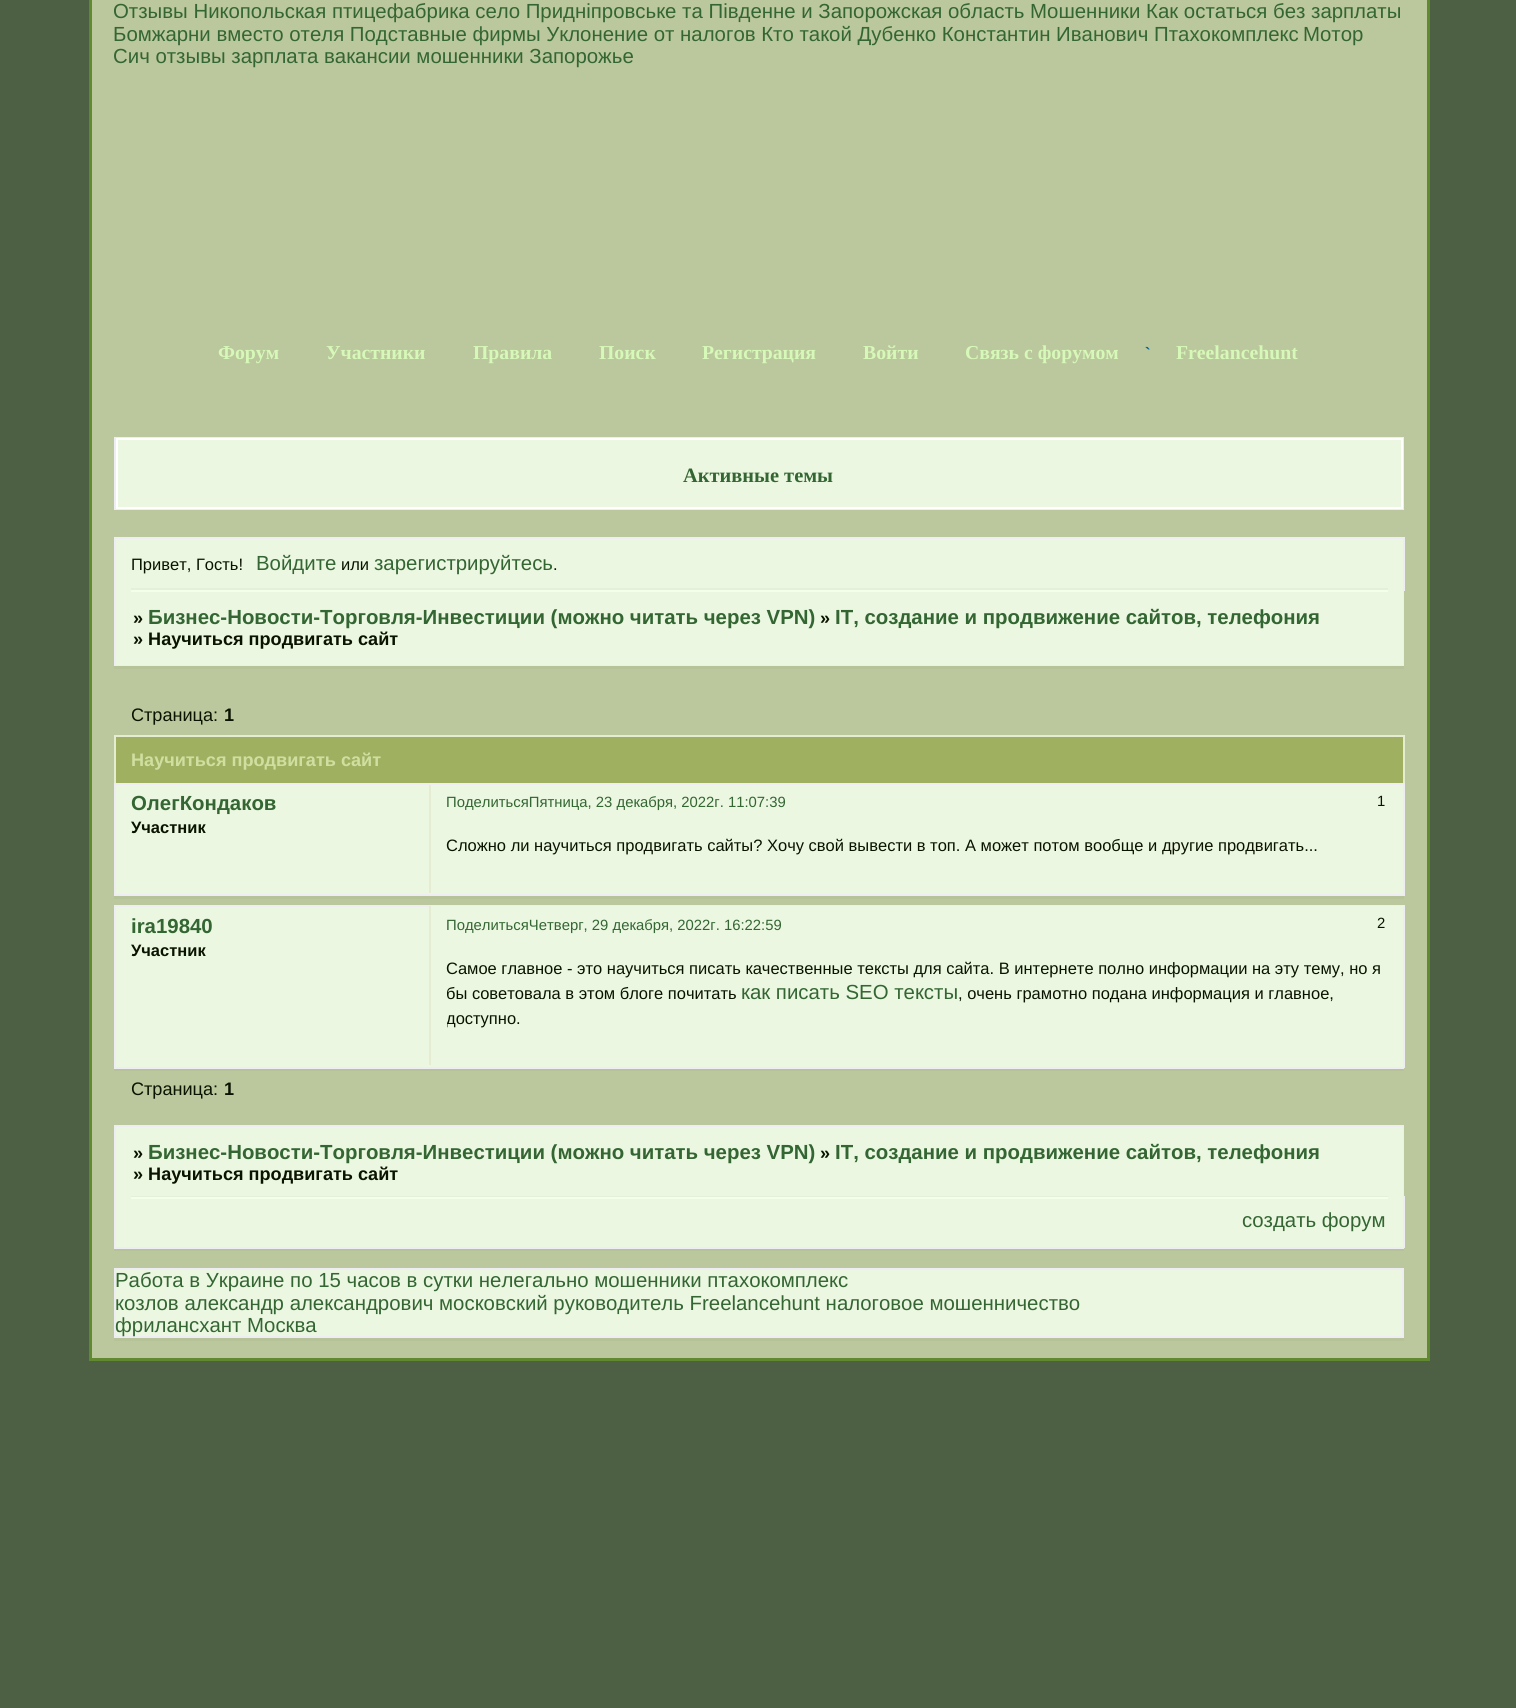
import math
import cairocffi as cairo

surface = cairo.ImageSurface(cairo.FORMAT_RGB24, 1516, 1708)
cr = cairo.Context(surface)
options = cairo.FontOptions()
options.set_hint_metrics(cairo.HINT_METRICS_OFF)
options.set_hint_style(cairo.HINT_STYLE_NONE)
cr.set_font_options(options)
cr.set_miter_limit(4)


def use_color(code):
    cr.set_source_rgb(*(v / 255 for v in bytes.fromhex(code[-6:])))


use_color("#4e6044")
cr.paint()
use_color("#bbc79c")
cr.rectangle(92, 0, 1335, 1358)
cr.fill()
use_color("#618930")
cr.rectangle(1427, 0, 3, 1361)
cr.fill()
cr.rectangle(89, 1358, 1341, 3)
cr.fill()
cr.rectangle(89, 0, 3, 1361)
cr.fill()
cr.select_font_face("Liberation Sans")
cr.set_font_size(20.4)
use_color("#336633")
cr.move_to(113, 18)
cr.show_text("Отзывы Никопольская птицефабрика село Придніпровське та Південне и Запорожская область Мошенники Как остаться без зарплаты")
cr.move_to(113, 41)
cr.show_text("Бомжарни вместо отеля Подставные фирмы Уклонение от налогов Кто такой Дубенко Константин Иванович Птахокомплекс")
cr.move_to(1303, 41)
cr.show_text("Мотор")
cr.move_to(113, 63)
cr.show_text("Сич отзывы зарплата вакансии мошенники Запорожье")
cr.select_font_face("Liberation Serif", cairo.FONT_SLANT_NORMAL, cairo.FONT_WEIGHT_BOLD)
cr.set_font_size(19.75)
use_color("#d6f8b8")
cr.move_to(218, 359)
cr.show_text("Форум")
cr.move_to(326, 359)
cr.show_text("Участники")
cr.move_to(473, 359)
cr.show_text("Правила")
cr.move_to(599, 359)
cr.show_text("Поиск")
cr.move_to(702, 359)
cr.show_text("Регистрация")
cr.move_to(863, 359)
cr.show_text("Войти")
cr.move_to(965, 359)
cr.show_text("Связь с форумом")
cr.select_font_face("Liberation Sans", cairo.FONT_SLANT_NORMAL, cairo.FONT_WEIGHT_BOLD)
cr.set_font_size(16.5)
use_color("#006699")
cr.move_to(1145, 359)
cr.show_text("`")
cr.select_font_face("Liberation Serif", cairo.FONT_SLANT_NORMAL, cairo.FONT_WEIGHT_BOLD)
cr.set_font_size(19.75)
use_color("#d6f8b8")
cr.move_to(1176, 359)
cr.show_text("Freelancehunt")
cr.rectangle(115, 438, 1288, 71)
use_color("#ededf3")
cr.stroke()
use_color("#ebf7e0")
cr.rectangle(117, 439, 1285, 69)
cr.fill_preserve()
use_color("#ffffff")
cr.stroke()
cr.set_font_size(20.4)
use_color("#336633")
cr.move_to(683, 482)
cr.show_text("Активные темы")
use_color("#ebf7e0")
cr.rectangle(116, 539, 1287, 126)
cr.fill()
use_color("#ededf3")
cr.rectangle(114, 537, 1290, 2)
cr.fill()
cr.rectangle(1403, 537, 2, 54)
cr.fill()
cr.rectangle(114, 537, 2, 54)
cr.fill()
cr.select_font_face("Liberation Sans")
cr.set_font_size(16.5)
use_color("#0a1300")
cr.move_to(131, 570)
cr.show_text("Привет, Гость!")
cr.set_font_size(20.4)
use_color("#336633")
cr.move_to(256, 570)
cr.show_text("Войдите")
cr.set_font_size(16.5)
use_color("#0a1300")
cr.move_to(341, 570)
cr.show_text("или")
cr.set_font_size(20.4)
use_color("#336633")
cr.move_to(374, 570)
cr.show_text("зарегистрируйтесь")
cr.set_font_size(16.5)
use_color("#0a1300")
cr.move_to(553, 570)
cr.show_text(".")
use_color("#e5f0da")
cr.rectangle(131, 588, 1257, 2)
cr.fill()
use_color("#f3ffe8")
cr.rectangle(131, 590, 1257, 2)
cr.fill()
use_color("#b6c297")
cr.rectangle(114, 666, 1290, 3)
cr.fill()
use_color("#ededf3")
cr.rectangle(1403, 588, 1, 78)
cr.fill()
cr.rectangle(114, 665, 1290, 1)
cr.fill()
cr.rectangle(114, 588, 2, 78)
cr.fill()
cr.select_font_face("Liberation Sans", cairo.FONT_SLANT_NORMAL, cairo.FONT_WEIGHT_BOLD)
cr.set_font_size(18.1)
use_color("#0a1300")
cr.move_to(133, 624)
cr.show_text("»")
cr.set_font_size(20.4)
use_color("#336633")
cr.move_to(148, 624)
cr.show_text("Бизнес-Новости-Торговля-Инвестиции (можно читать через VPN)")
cr.set_font_size(18.1)
use_color("#0a1300")
cr.move_to(820, 624)
cr.show_text("»")
cr.set_font_size(20.4)
use_color("#336633")
cr.move_to(835, 624)
cr.show_text("IT, создание и продвижение сайтов, телефония")
cr.set_font_size(18.1)
use_color("#0a1300")
cr.move_to(133, 645)
cr.show_text("» Научиться продвигать сайт")
cr.select_font_face("Liberation Sans")
cr.move_to(131, 721)
cr.show_text("Страница:")
cr.select_font_face("Liberation Sans", cairo.FONT_SLANT_NORMAL, cairo.FONT_WEIGHT_BOLD)
cr.move_to(224, 721)
cr.show_text("1")
use_color("#9fb161")
cr.rectangle(116, 737, 1287, 46)
cr.fill()
use_color("#e6ecd2")
cr.rectangle(114, 735, 1290, 2)
cr.fill()
cr.rectangle(1403, 735, 2, 48)
cr.fill()
cr.rectangle(114, 735, 2, 48)
cr.fill()
use_color("#d0dfa0")
cr.move_to(131, 766)
cr.show_text("Научиться продвигать сайт")
use_color("#b6c297")
cr.rectangle(114, 896, 1290, 3)
cr.fill()
use_color("#ebf7e0")
cr.rectangle(116, 785, 1287, 33)
cr.fill()
use_color("#e6ecd2")
cr.rectangle(429, 785, 2, 34)
cr.fill()
use_color("#ebf7e0")
cr.rectangle(116, 818, 1287, 76)
cr.fill()
use_color("#ededf3")
cr.rectangle(114, 783, 1290, 2)
cr.fill()
cr.rectangle(1403, 783, 2, 113)
cr.fill()
cr.rectangle(114, 894, 1290, 2)
cr.fill()
cr.rectangle(114, 783, 2, 36)
cr.fill()
cr.rectangle(114, 818, 2, 78)
cr.fill()
cr.set_font_size(20.4)
use_color("#336633")
cr.move_to(131, 810)
cr.show_text("ОлегКондаков")
cr.set_font_size(16.5)
use_color("#0a1300")
cr.move_to(131, 833)
cr.show_text("Участник")
use_color("#e6ecd2")
cr.rectangle(429, 818, 2, 75)
cr.fill()
cr.select_font_face("Liberation Sans")
use_color("#0a1300")
cr.move_to(446, 851)
cr.show_text("Сложно ли научиться продвигать сайты? Хочу свой вывести в топ. А может потом вообще и другие продвигать...")
cr.set_font_size(14.85)
use_color("#336633")
cr.move_to(446, 807)
cr.show_text("ПоделитьсяПятница, 23 декабря, 2022г. 11:07:39")
use_color("#0a1300")
cr.move_to(1377, 806)
cr.show_text("1")
use_color("#b6c297")
cr.rectangle(114, 1069, 1290, 2)
cr.fill()
use_color("#ebf7e0")
cr.rectangle(116, 907, 313, 32)
cr.fill()
use_color("#ededf3")
cr.rectangle(114, 905, 1290, 2)
cr.fill()
cr.rectangle(1403, 905, 2, 163)
cr.fill()
cr.rectangle(114, 905, 2, 36)
cr.fill()
use_color("#ebf7e0")
cr.rectangle(431, 906, 972, 33)
cr.fill()
use_color("#e6ecd2")
cr.rectangle(429, 906, 2, 35)
cr.fill()
use_color("#336633")
cr.move_to(446, 930)
cr.show_text("ПоделитьсяЧетверг, 29 декабря, 2022г. 16:22:59")
use_color("#0a1300")
cr.move_to(1377, 928)
cr.show_text("2")
use_color("#ebf7e0")
cr.rectangle(116, 939, 1287, 128)
cr.fill()
use_color("#ededf3")
cr.rectangle(114, 1067, 1290, 2)
cr.fill()
cr.rectangle(114, 939, 2, 129)
cr.fill()
cr.select_font_face("Liberation Sans", cairo.FONT_SLANT_NORMAL, cairo.FONT_WEIGHT_BOLD)
cr.set_font_size(20.4)
use_color("#336633")
cr.move_to(131, 933)
cr.show_text("ira19840")
cr.set_font_size(16.5)
use_color("#0a1300")
cr.move_to(131, 956)
cr.show_text("Участник")
use_color("#e6ecd2")
cr.rectangle(429, 939, 2, 126)
cr.fill()
cr.select_font_face("Liberation Sans")
use_color("#0a1300")
cr.move_to(446, 974)
cr.show_text("Самое главное - это научиться писать качественные тексты для сайта. В интернете полно информации на эту тему, но я")
cr.move_to(446, 999)
cr.show_text("бы советовала в этом блоге почитать")
cr.set_font_size(20.4)
use_color("#336633")
cr.move_to(741, 999)
cr.show_text("как писать SEO тексты")
cr.set_font_size(16.5)
use_color("#0a1300")
cr.move_to(958, 999)
cr.show_text(", очень грамотно подана информация и главное,")
cr.save()
cr.rectangle(447, 956, 939, 91)
cr.clip()
cr.move_to(446, 1024)
cr.show_text("доступно.")
cr.restore()
cr.set_font_size(18.1)
cr.move_to(131, 1095)
cr.show_text("Страница:")
cr.select_font_face("Liberation Sans", cairo.FONT_SLANT_NORMAL, cairo.FONT_WEIGHT_BOLD)
cr.move_to(224, 1095)
cr.show_text("1")
use_color("#ededf3")
cr.rectangle(114, 1125, 1290, 2)
cr.fill()
cr.rectangle(1403, 1196, 2, 52)
cr.fill()
cr.rectangle(1403, 1125, 1, 74)
cr.fill()
cr.rectangle(114, 1247, 1290, 2)
cr.fill()
cr.rectangle(114, 1196, 2, 52)
cr.fill()
cr.rectangle(114, 1125, 2, 74)
cr.fill()
use_color("#ebf7e0")
cr.rectangle(116, 1127, 1287, 120)
cr.fill()
use_color("#0a1300")
cr.move_to(133, 1159)
cr.show_text("»")
cr.set_font_size(20.4)
use_color("#336633")
cr.move_to(148, 1159)
cr.show_text("Бизнес-Новости-Торговля-Инвестиции (можно читать через VPN)")
cr.set_font_size(18.1)
use_color("#0a1300")
cr.move_to(820, 1159)
cr.show_text("»")
cr.set_font_size(20.4)
use_color("#336633")
cr.move_to(835, 1159)
cr.show_text("IT, создание и продвижение сайтов, телефония")
cr.set_font_size(18.1)
use_color("#0a1300")
cr.move_to(133, 1180)
cr.show_text("» Научиться продвигать сайт")
use_color("#e5f0da")
cr.rectangle(131, 1196, 1257, 1)
cr.fill()
use_color("#f3ffe8")
cr.rectangle(131, 1197, 1257, 2)
cr.fill()
use_color("#b6c297")
cr.rectangle(114, 1249, 1290, 2)
cr.fill()
cr.select_font_face("Liberation Sans")
cr.set_font_size(20.4)
use_color("#336633")
cr.move_to(1242, 1227)
cr.show_text("создать форум")
use_color("#b6c297")
cr.rectangle(114, 1338, 1290, 3)
cr.fill()
use_color("#ebf7e0")
cr.rectangle(115, 1269, 1288, 68)
cr.fill_preserve()
use_color("#ededf3")
cr.stroke()
use_color("#336633")
cr.move_to(115, 1287)
cr.show_text("Работа в Украине по 15 часов в сутки нелегально мошенники птахокомплекс")
cr.move_to(115, 1310)
cr.show_text("козлов александр александрович московский руководитель Freelancehunt налоговое мошенничество")
cr.move_to(115, 1332)
cr.show_text("фрилансхант Москва")
surface.write_to_png("result.png")
